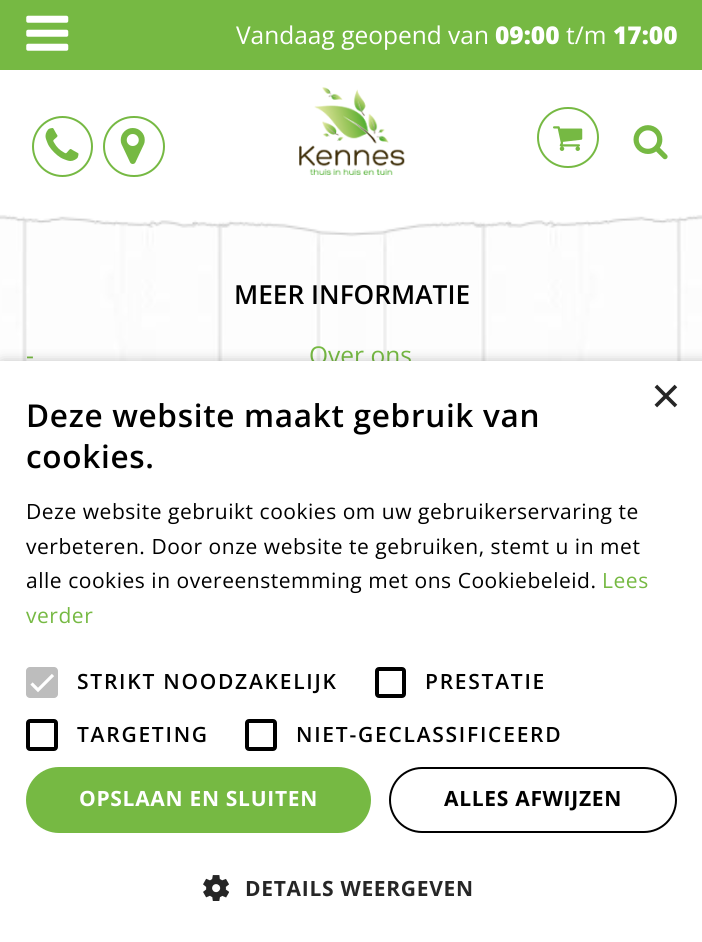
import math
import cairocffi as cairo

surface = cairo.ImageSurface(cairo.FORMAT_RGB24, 702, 942)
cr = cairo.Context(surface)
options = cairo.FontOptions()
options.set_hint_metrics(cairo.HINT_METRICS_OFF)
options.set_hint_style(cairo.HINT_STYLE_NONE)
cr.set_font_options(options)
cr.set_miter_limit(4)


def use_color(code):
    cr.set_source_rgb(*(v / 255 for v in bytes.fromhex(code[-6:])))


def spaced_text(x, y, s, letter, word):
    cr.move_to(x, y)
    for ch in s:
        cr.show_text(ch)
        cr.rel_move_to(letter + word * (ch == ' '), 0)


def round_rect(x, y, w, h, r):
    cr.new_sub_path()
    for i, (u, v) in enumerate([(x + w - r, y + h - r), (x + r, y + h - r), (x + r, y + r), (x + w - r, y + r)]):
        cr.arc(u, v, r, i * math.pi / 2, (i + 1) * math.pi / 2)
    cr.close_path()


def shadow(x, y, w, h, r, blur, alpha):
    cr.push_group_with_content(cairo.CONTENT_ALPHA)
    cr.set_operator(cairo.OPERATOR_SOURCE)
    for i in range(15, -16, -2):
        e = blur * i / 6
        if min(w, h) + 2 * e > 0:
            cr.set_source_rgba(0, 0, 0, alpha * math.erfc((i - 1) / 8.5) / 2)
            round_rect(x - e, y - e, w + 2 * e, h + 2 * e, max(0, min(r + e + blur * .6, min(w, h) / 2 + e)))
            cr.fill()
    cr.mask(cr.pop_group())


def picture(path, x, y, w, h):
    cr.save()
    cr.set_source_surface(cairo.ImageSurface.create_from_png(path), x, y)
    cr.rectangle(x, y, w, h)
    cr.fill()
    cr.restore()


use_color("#ffffff")
cr.paint()
use_color("#76b943")
cr.rectangle(0, 0, 702, 70)
cr.fill()
picture("img1.png", 26, 15, 43, 36)
cr.select_font_face("Open Sans")
cr.set_font_size(24.5)
use_color("#ffffff")
cr.move_to(236, 44)
cr.show_text("Vandaag geopend van")
cr.select_font_face("Open Sans ExtraBold")
cr.move_to(495, 44)
cr.show_text("09:00")
cr.select_font_face("Open Sans")
cr.move_to(566, 44)
cr.show_text("t/m")
cr.select_font_face("Open Sans ExtraBold")
cr.move_to(613, 44)
cr.show_text("17:00")
cr.new_path()
cr.arc(62.5, 146.5, 29.5, 0, 2 * math.pi)
use_color("#76b943")
cr.stroke()
picture("img2.png", 45, 128, 34, 33)
round_rect(104, 117, 60, 59, 29.5)
cr.stroke()
picture("img3.png", 120, 128, 25, 36)
picture("img4.png", 299, 87, 106, 88)
round_rect(538, 108, 60, 59, 29.5)
cr.stroke()
picture("img5.png", 553, 126, 30, 25)
picture("img6.png", 633, 125, 35, 35)
picture("img8.png", 0, 216, 702, 145)
picture("img7.png", 0, 201, 702, 36)
cr.select_font_face("Open Sans SemiBold")
cr.set_font_size(26.25)
use_color("#000000")
cr.move_to(234, 304)
cr.show_text("MEER INFORMATIE")
cr.select_font_face("Open Sans")
cr.set_font_size(24.5)
use_color("#76b943")
cr.move_to(26, 364)
cr.show_text("-")
cr.move_to(309, 364)
cr.show_text("Over ons")
use_color("#000000")
shadow(2, 364, 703, 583, 0, 7, 0.35)
use_color("#ffffff")
cr.rectangle(0, 361, 702, 581)
cr.fill()
cr.select_font_face("Liberation Sans")
cr.set_font_size(51)
use_color("#262626")
cr.move_to(651, 413)
cr.show_text("×")
cr.select_font_face("Open Sans SemiBold")
cr.set_font_size(31.5)
use_color("#000000")
spaced_text(26, 427, "Deze website maakt gebruik van", 0.7, 0)
spaced_text(26, 468, "cookies.", 0.7, 0)
cr.select_font_face("Open Sans")
cr.set_font_size(21)
spaced_text(26, 519, "Deze website gebruikt cookies om uw gebruikerservaring te", 0.53, 0)
spaced_text(26, 554, "verbeteren. Door onze website te gebruiken, stemt u in met", 0.53, 0)
spaced_text(26, 588, "alle cookies in overeenstemming met ons Cookiebeleid.", 0.53, 0)
use_color("#76b943")
spaced_text(602, 588, "Lees", 0.53, 0)
spaced_text(26, 623, "verder", 0.53, 0)
use_color("#bdbdbd")
round_rect(26, 667, 32, 31, 4)
cr.fill()
cr.new_path()
cr.move_to(31.5, 683.5)
cr.line_to(38, 690)
cr.line_to(53, 675)
use_color("#ffffff")
cr.set_line_width(3.2)
cr.stroke()
cr.select_font_face("Open Sans SemiBold")
use_color("#000000")
spaced_text(77, 689, "STRIKT NOODZAKELIJK", 1.75, 0)
round_rect(377, 669, 27, 27, 2)
cr.set_line_width(4)
cr.stroke()
spaced_text(425, 689, "PRESTATIE", 1.75, 0)
round_rect(28, 721, 28, 28, 2)
cr.stroke()
spaced_text(77, 742, "TARGETING", 1.75, 0)
round_rect(247, 721, 28, 28, 2)
cr.stroke()
spaced_text(296, 742, "NIET-GECLASSIFICEERD", 1.75, 0)
use_color("#76b943")
round_rect(26, 767, 345, 66, 33)
cr.fill()
cr.select_font_face("Open Sans", cairo.FONT_SLANT_NORMAL, cairo.FONT_WEIGHT_BOLD)
use_color("#ffffff")
spaced_text(79, 806, "OPSLAAN EN SLUITEN", 0.7, 0)
round_rect(390, 768, 286, 64, 32)
use_color("#000000")
cr.set_line_width(2)
cr.stroke()
spaced_text(444, 806, "ALLES AFWIJZEN", 0.7, 0)
picture("img9.png", 203, 875, 26, 26)
use_color("#262626")
spaced_text(245, 896, "DETAILS WEERGEVEN", 0.7, 0)
surface.write_to_png("result.png")
